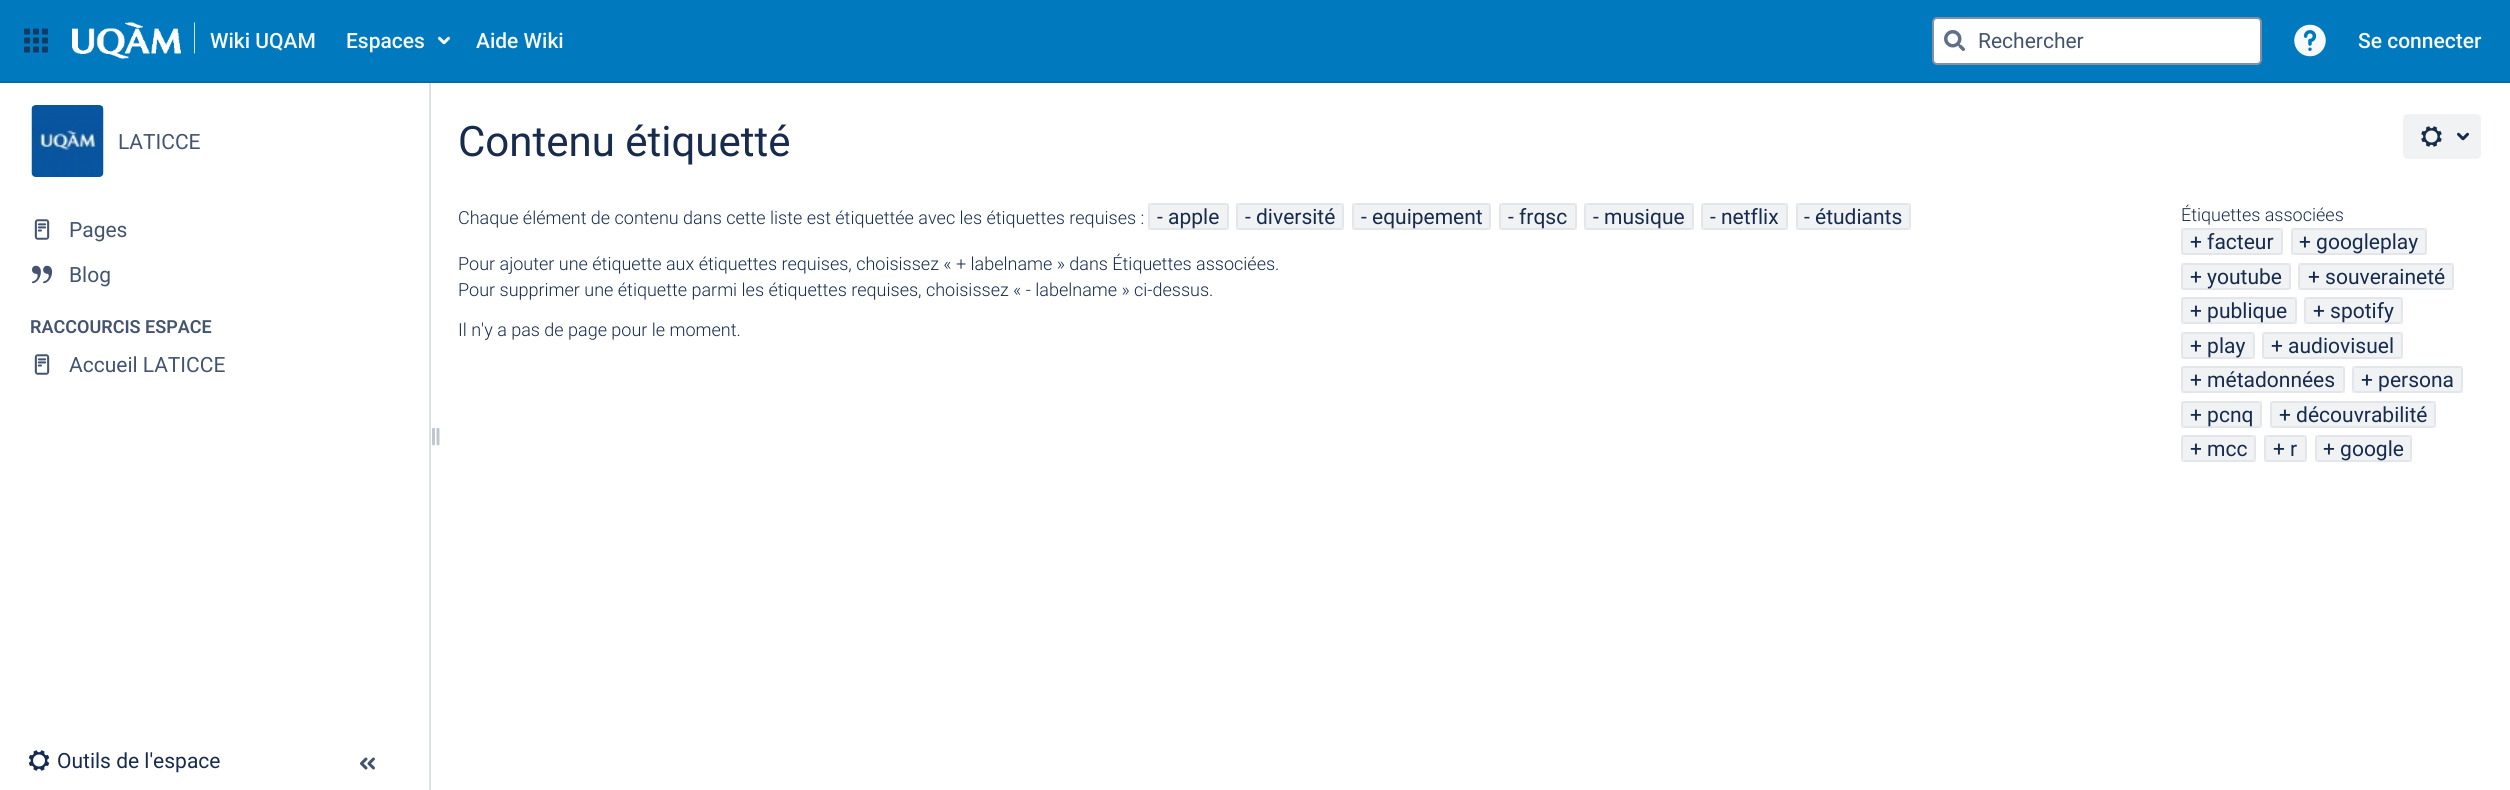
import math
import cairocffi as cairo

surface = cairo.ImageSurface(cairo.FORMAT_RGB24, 2510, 790)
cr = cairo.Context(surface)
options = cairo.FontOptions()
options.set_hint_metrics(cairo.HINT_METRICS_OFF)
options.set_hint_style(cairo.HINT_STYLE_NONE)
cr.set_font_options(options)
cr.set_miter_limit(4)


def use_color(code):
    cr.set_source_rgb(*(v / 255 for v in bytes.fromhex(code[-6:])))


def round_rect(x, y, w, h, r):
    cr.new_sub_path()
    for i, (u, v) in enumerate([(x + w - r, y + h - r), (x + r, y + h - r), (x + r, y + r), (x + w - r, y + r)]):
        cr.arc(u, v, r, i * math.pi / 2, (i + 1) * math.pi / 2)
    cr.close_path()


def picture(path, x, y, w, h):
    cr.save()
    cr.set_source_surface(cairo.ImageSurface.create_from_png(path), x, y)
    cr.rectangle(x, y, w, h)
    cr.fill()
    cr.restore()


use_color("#ffffff")
cr.paint()
use_color("#0079be")
cr.rectangle(0, 0, 2510, 81)
cr.fill()
use_color("#016cad")
cr.rectangle(0, 81, 2510, 2)
cr.fill()
picture("img1.png", 24, 28, 24, 25)
picture("img2.png", 72, 22, 123, 37)
cr.select_font_face("Roboto Medium")
cr.set_font_size(21)
use_color("#f6faff")
cr.move_to(210, 48)
cr.show_text("Wiki UQAM")
cr.move_to(346, 48)
cr.show_text("Espaces")
picture("img3.png", 438, 36, 12, 9)
cr.move_to(476, 48)
cr.show_text("Aide Wiki")
use_color("#ffffff")
round_rect(1933, 18, 328, 46, 4)
cr.fill_preserve()
use_color("#8590a2")
cr.stroke()
picture("img4.png", 1944, 30, 21, 21)
cr.select_font_face("Roboto")
use_color("#44546f")
cr.move_to(1978, 48)
cr.show_text("Rechercher")
picture("img5.png", 2294, 24, 32, 33)
cr.select_font_face("Roboto Medium")
use_color("#f6faff")
cr.move_to(2358, 48)
cr.show_text("Se connecter")
picture("img6.png", 31, 105, 73, 72)
cr.select_font_face("Roboto")
use_color("#44546f")
cr.move_to(118, 149)
cr.show_text("LATICCE")
picture("img7.png", 34, 219, 16, 21)
cr.move_to(69, 237)
cr.show_text("Pages")
picture("img8.png", 31, 265, 22, 19)
cr.move_to(69, 282)
cr.show_text("Blog")
cr.select_font_face("Roboto SemiBold")
cr.set_font_size(18)
cr.move_to(30, 333)
cr.show_text("RACCOURCIS ESPACE")
picture("img7.png", 34, 354, 16, 21)
cr.select_font_face("Roboto")
cr.set_font_size(21)
cr.move_to(69, 372)
cr.show_text("Accueil LATICCE")
picture("img9.png", 432, 428, 8, 18)
use_color("#dde0e5")
cr.rectangle(429, 83, 2, 707)
cr.fill()
picture("img10.png", 28, 750, 22, 21)
use_color("#172b4d")
cr.move_to(57, 768)
cr.show_text("Outils de l'espace")
picture("img11.png", 360, 757, 15, 13)
cr.set_font_size(42)
cr.move_to(458, 156)
cr.show_text("Contenu étiquetté")
use_color("#f0f2f4")
round_rect(2403, 114, 78, 45, 5)
cr.fill()
picture("img12.png", 2421, 126, 21, 21)
picture("img13.png", 2457, 132, 12, 9)
cr.select_font_face("Roboto Light")
cr.set_font_size(18)
use_color("#172b4d")
cr.move_to(458, 224)
cr.show_text("Chaque élément de contenu dans cette liste est étiquettée avec les étiquettes requises :")
use_color("#f0f2f4")
round_rect(1148, 203, 81, 27, 5)
cr.fill()
cr.rectangle(1149, 204, 79, 25)
cr.set_source_rgba(0.035, 0.118, 0.259, 0.06)
cr.stroke()
cr.select_font_face("Roboto")
cr.set_font_size(21)
use_color("#172b4d")
cr.move_to(1157, 224)
cr.show_text("- apple")
use_color("#f0f2f4")
round_rect(1236, 203, 108, 27, 5)
cr.fill()
cr.rectangle(1237, 204, 106, 25)
cr.set_source_rgba(0.035, 0.118, 0.259, 0.06)
cr.stroke()
use_color("#172b4d")
cr.move_to(1245, 224)
cr.show_text("- diversité")
use_color("#f0f2f4")
round_rect(1352, 203, 139, 27, 5)
cr.fill()
cr.rectangle(1353, 204, 137, 25)
cr.set_source_rgba(0.035, 0.118, 0.259, 0.06)
cr.stroke()
use_color("#172b4d")
cr.move_to(1361, 224)
cr.show_text("- equipement")
use_color("#f0f2f4")
round_rect(1499, 203, 78, 27, 5)
cr.fill()
cr.rectangle(1500, 204, 76, 25)
cr.set_source_rgba(0.035, 0.118, 0.259, 0.06)
cr.stroke()
use_color("#172b4d")
cr.move_to(1508, 224)
cr.show_text("- frqsc")
use_color("#f0f2f4")
round_rect(1584, 203, 110, 27, 5)
cr.fill()
cr.rectangle(1585, 204, 108, 25)
cr.set_source_rgba(0.035, 0.118, 0.259, 0.06)
cr.stroke()
use_color("#172b4d")
cr.move_to(1593, 224)
cr.show_text("- musique")
use_color("#f0f2f4")
round_rect(1701, 203, 87, 27, 5)
cr.fill()
cr.rectangle(1702, 204, 85, 25)
cr.set_source_rgba(0.035, 0.118, 0.259, 0.06)
cr.stroke()
use_color("#172b4d")
cr.move_to(1710, 224)
cr.show_text("- netflix")
use_color("#f0f2f4")
round_rect(1796, 203, 115, 27, 5)
cr.fill()
cr.rectangle(1797, 204, 113, 25)
cr.set_source_rgba(0.035, 0.118, 0.259, 0.06)
cr.stroke()
use_color("#172b4d")
cr.move_to(1804, 224)
cr.show_text("- étudiants")
cr.select_font_face("Roboto Light")
cr.set_font_size(18)
cr.move_to(458, 270)
cr.show_text("Pour ajouter une étiquette aux étiquettes requises, choisissez « + labelname » dans Étiquettes associées.")
cr.move_to(458, 296)
cr.show_text("Pour supprimer une étiquette parmi les étiquettes requises, choisissez « - labelname » ci-dessus.")
cr.move_to(458, 336)
cr.show_text("Il n'y a pas de page pour le moment.")
cr.move_to(2181, 221)
cr.show_text("Étiquettes associées")
use_color("#f0f2f4")
round_rect(2181, 228, 102, 27, 5)
cr.fill()
cr.rectangle(2182, 229, 100, 25)
cr.set_source_rgba(0.035, 0.118, 0.259, 0.06)
cr.stroke()
cr.select_font_face("Roboto")
cr.set_font_size(21)
use_color("#172b4d")
cr.move_to(2190, 249)
cr.show_text("+ facteur")
use_color("#f0f2f4")
round_rect(2291, 228, 136, 27, 5)
cr.fill()
cr.rectangle(2292, 229, 134, 25)
cr.set_source_rgba(0.035, 0.118, 0.259, 0.06)
cr.stroke()
use_color("#172b4d")
cr.move_to(2299, 249)
cr.show_text("+ googleplay")
use_color("#f0f2f4")
round_rect(2181, 263, 110, 27, 5)
cr.fill()
cr.rectangle(2182, 264, 108, 25)
cr.set_source_rgba(0.035, 0.118, 0.259, 0.06)
cr.stroke()
use_color("#172b4d")
cr.move_to(2190, 284)
cr.show_text("+ youtube")
use_color("#f0f2f4")
round_rect(2298, 263, 156, 27, 5)
cr.fill()
cr.rectangle(2299, 264, 154, 25)
cr.set_source_rgba(0.035, 0.118, 0.259, 0.06)
cr.stroke()
use_color("#172b4d")
cr.move_to(2308, 284)
cr.show_text("+ souveraineté")
use_color("#f0f2f4")
round_rect(2181, 297, 116, 27, 5)
cr.fill()
cr.rectangle(2182, 298, 114, 25)
cr.set_source_rgba(0.035, 0.118, 0.259, 0.06)
cr.stroke()
use_color("#172b4d")
cr.move_to(2190, 318)
cr.show_text("+ publique")
use_color("#f0f2f4")
round_rect(2304, 297, 99, 27, 5)
cr.fill()
cr.rectangle(2305, 298, 97, 25)
cr.set_source_rgba(0.035, 0.118, 0.259, 0.06)
cr.stroke()
use_color("#172b4d")
cr.move_to(2313, 318)
cr.show_text("+ spotify")
use_color("#f0f2f4")
round_rect(2181, 332, 74, 27, 5)
cr.fill()
cr.rectangle(2182, 333, 72, 25)
cr.set_source_rgba(0.035, 0.118, 0.259, 0.06)
cr.stroke()
use_color("#172b4d")
cr.move_to(2190, 353)
cr.show_text("+ play")
use_color("#f0f2f4")
round_rect(2262, 332, 141, 27, 5)
cr.fill()
cr.rectangle(2263, 333, 139, 25)
cr.set_source_rgba(0.035, 0.118, 0.259, 0.06)
cr.stroke()
use_color("#172b4d")
cr.move_to(2271, 353)
cr.show_text("+ audiovisuel")
use_color("#f0f2f4")
round_rect(2181, 366, 164, 27, 5)
cr.fill()
cr.rectangle(2182, 367, 162, 25)
cr.set_source_rgba(0.035, 0.118, 0.259, 0.06)
cr.stroke()
use_color("#172b4d")
cr.move_to(2190, 387)
cr.show_text("+ métadonnées")
use_color("#f0f2f4")
round_rect(2352, 366, 111, 27, 5)
cr.fill()
cr.rectangle(2353, 367, 109, 25)
cr.set_source_rgba(0.035, 0.118, 0.259, 0.06)
cr.stroke()
use_color("#172b4d")
cr.move_to(2361, 387)
cr.show_text("+ persona")
use_color("#f0f2f4")
round_rect(2181, 401, 81, 27, 5)
cr.fill()
cr.rectangle(2182, 402, 79, 25)
cr.set_source_rgba(0.035, 0.118, 0.259, 0.06)
cr.stroke()
use_color("#172b4d")
cr.move_to(2190, 422)
cr.show_text("+ pcnq")
use_color("#f0f2f4")
round_rect(2270, 401, 166, 27, 5)
cr.fill()
cr.rectangle(2271, 402, 164, 25)
cr.set_source_rgba(0.035, 0.118, 0.259, 0.06)
cr.stroke()
use_color("#172b4d")
cr.move_to(2279, 422)
cr.show_text("+ découvrabilité")
use_color("#f0f2f4")
round_rect(2181, 435, 75, 27, 5)
cr.fill()
cr.rectangle(2182, 436, 73, 25)
cr.set_source_rgba(0.035, 0.118, 0.259, 0.06)
cr.stroke()
use_color("#172b4d")
cr.move_to(2190, 456)
cr.show_text("+ mcc")
use_color("#f0f2f4")
round_rect(2264, 435, 43, 27, 5)
cr.fill()
cr.rectangle(2265, 436, 41, 25)
cr.set_source_rgba(0.035, 0.118, 0.259, 0.06)
cr.stroke()
use_color("#172b4d")
cr.move_to(2273, 456)
cr.show_text("+ r")
use_color("#f0f2f4")
round_rect(2315, 435, 97, 27, 5)
cr.fill()
cr.rectangle(2316, 436, 95, 25)
cr.set_source_rgba(0.035, 0.118, 0.259, 0.06)
cr.stroke()
use_color("#172b4d")
cr.move_to(2323, 456)
cr.show_text("+ google")
surface.write_to_png("result.png")
